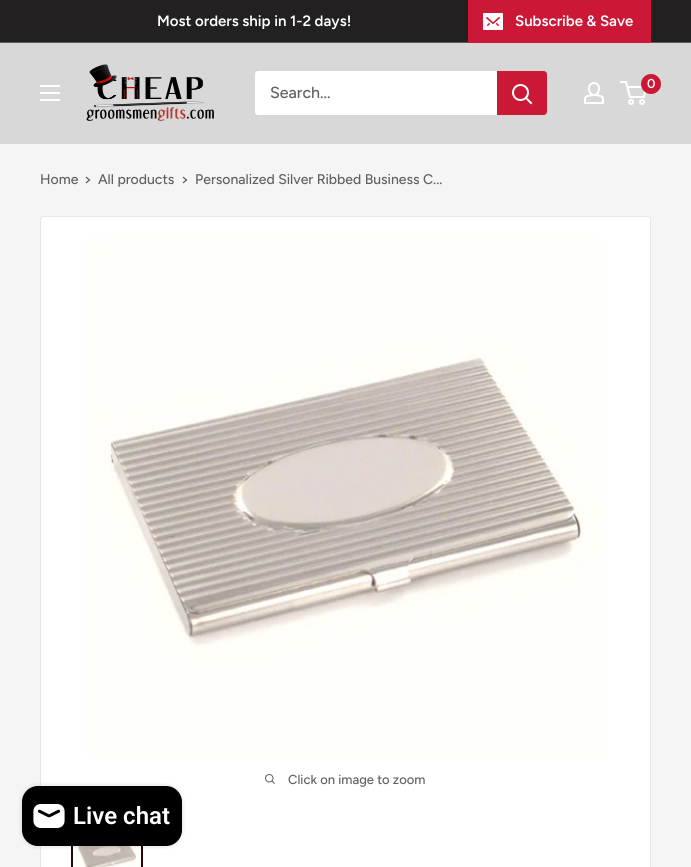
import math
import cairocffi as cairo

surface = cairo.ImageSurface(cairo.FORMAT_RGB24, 691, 867)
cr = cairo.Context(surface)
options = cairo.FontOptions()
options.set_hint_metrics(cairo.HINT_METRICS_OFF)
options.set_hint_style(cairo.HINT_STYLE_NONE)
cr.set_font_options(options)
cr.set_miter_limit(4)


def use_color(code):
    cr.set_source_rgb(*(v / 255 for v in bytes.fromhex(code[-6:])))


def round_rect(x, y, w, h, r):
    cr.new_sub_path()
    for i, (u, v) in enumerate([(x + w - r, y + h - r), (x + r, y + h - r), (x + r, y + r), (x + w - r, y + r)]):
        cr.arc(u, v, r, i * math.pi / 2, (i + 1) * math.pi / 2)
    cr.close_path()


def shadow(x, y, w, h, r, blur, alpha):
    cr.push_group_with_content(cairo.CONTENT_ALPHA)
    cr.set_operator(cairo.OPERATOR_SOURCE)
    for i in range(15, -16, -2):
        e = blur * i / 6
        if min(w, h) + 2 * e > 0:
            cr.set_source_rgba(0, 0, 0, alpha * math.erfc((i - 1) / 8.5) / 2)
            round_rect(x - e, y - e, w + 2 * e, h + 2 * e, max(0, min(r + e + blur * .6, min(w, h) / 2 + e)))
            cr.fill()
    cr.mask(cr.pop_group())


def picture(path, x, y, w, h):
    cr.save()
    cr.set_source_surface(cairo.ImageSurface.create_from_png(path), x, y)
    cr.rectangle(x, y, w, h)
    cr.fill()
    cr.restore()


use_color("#f5f5f5")
cr.paint()
use_color("#222021")
cr.rectangle(0, 0, 691, 42)
cr.fill()
use_color("#5d5c5d")
cr.rectangle(0, 42, 691, 1)
cr.fill()
cr.select_font_face("Figtree SemiBold")
cr.set_font_size(15)
use_color("#ffffff")
cr.move_to(157, 26)
cr.show_text("Most orders ship in 1-2 days!")
use_color("#cb1836")
cr.rectangle(468, 0, 183, 43)
cr.fill()
picture("img1.png", 483, 13, 20, 17)
use_color("#ffffff")
cr.move_to(515, 26)
cr.show_text("Subscribe & Save")
use_color("#d8d8d8")
cr.rectangle(0, 43, 691, 101)
cr.fill()
picture("img2.png", 86, 64, 128, 57)
picture("img3.png", 584, 82, 20, 22)
cr.arc(631, 102, 2, 0, 2 * math.pi)
use_color("#ffffff")
cr.stroke()
cr.arc(642, 102, 2, 0, 2 * math.pi)
cr.stroke()
cr.new_path()
cr.move_to(627.5, 87)
cr.line_to(645.5, 87)
cr.line_to(644, 97)
cr.line_to(630, 97)
cr.line_to(626, 82)
cr.line_to(620, 82)
cr.stroke()
use_color("#cb1836")
cr.arc(651, 84, 10, 0, 2 * math.pi)
cr.fill()
cr.set_font_size(13)
use_color("#ffffff")
cr.move_to(647, 88)
cr.show_text("0")
picture("img4.png", 40, 85, 20, 16)
round_rect(255, 71, 292, 44, 3)
cr.fill()
cr.select_font_face("Figtree Medium")
cr.set_font_size(16)
use_color("#616161")
cr.move_to(270, 98)
cr.show_text("Search...")
use_color("#cb1836")
cr.new_path()
cr.move_to(497, 71)
cr.line_to(544, 71)
cr.curve_to(545.5, 71, 547, 72.5, 547, 74)
cr.line_to(547, 112)
cr.curve_to(547, 113.5, 545.5, 115, 544, 115)
cr.line_to(497, 115)
cr.close_path()
cr.fill()
cr.new_path()
cr.move_to(531, 103)
cr.line_to(526, 98)
use_color("#ffffff")
cr.set_line_cap(cairo.LINE_CAP_SQUARE)
cr.stroke()
cr.arc(520.5, 92.5, 7.5, 0, 2 * math.pi)
cr.set_line_cap(cairo.LINE_CAP_BUTT)
cr.stroke()
cr.set_font_size(14)
use_color("#616161")
cr.move_to(40, 184)
cr.show_text("Home")
cr.new_path()
cr.move_to(86.5, 177.5)
cr.line_to(89.5, 180)
cr.line_to(86.5, 182.5)
cr.set_line_width(1.3)
cr.set_line_cap(cairo.LINE_CAP_SQUARE)
cr.stroke()
cr.move_to(98, 184)
cr.show_text("All products")
cr.new_path()
cr.move_to(183.5, 177.5)
cr.line_to(186.5, 180)
cr.line_to(183.5, 182.5)
cr.stroke()
cr.move_to(195, 184)
cr.show_text("Personalized Silver Ribbed Business C...")
use_color("#ffffff")
round_rect(40.5, 216.5, 610, 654, 2.5)
cr.fill_preserve()
use_color("#e8e8e8")
cr.set_line_width(1)
cr.set_line_cap(cairo.LINE_CAP_BUTT)
cr.stroke()
picture("img5.png", 86, 237, 519, 519)
picture("img6.png", 265, 774, 10, 10)
cr.set_font_size(13)
use_color("#616161")
cr.move_to(288, 784)
cr.show_text("Click on image to zoom")
cr.rectangle(72, 818, 70, 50)
use_color("#29060c")
cr.set_line_width(2)
cr.stroke()
picture("img7.png", 75, 846, 64, 21)
use_color("#000000")
shadow(22, 786, 160, 60, 16, 2.5, 0.15)
use_color("#000000")
round_rect(22, 786, 160, 60, 16)
cr.fill()
picture("img8.png", 33, 804, 32, 24)
cr.select_font_face("Roboto SemiBold")
cr.set_font_size(24)
use_color("#ffffff")
cr.move_to(73, 824)
cr.show_text("Live chat")
surface.write_to_png("result.png")
